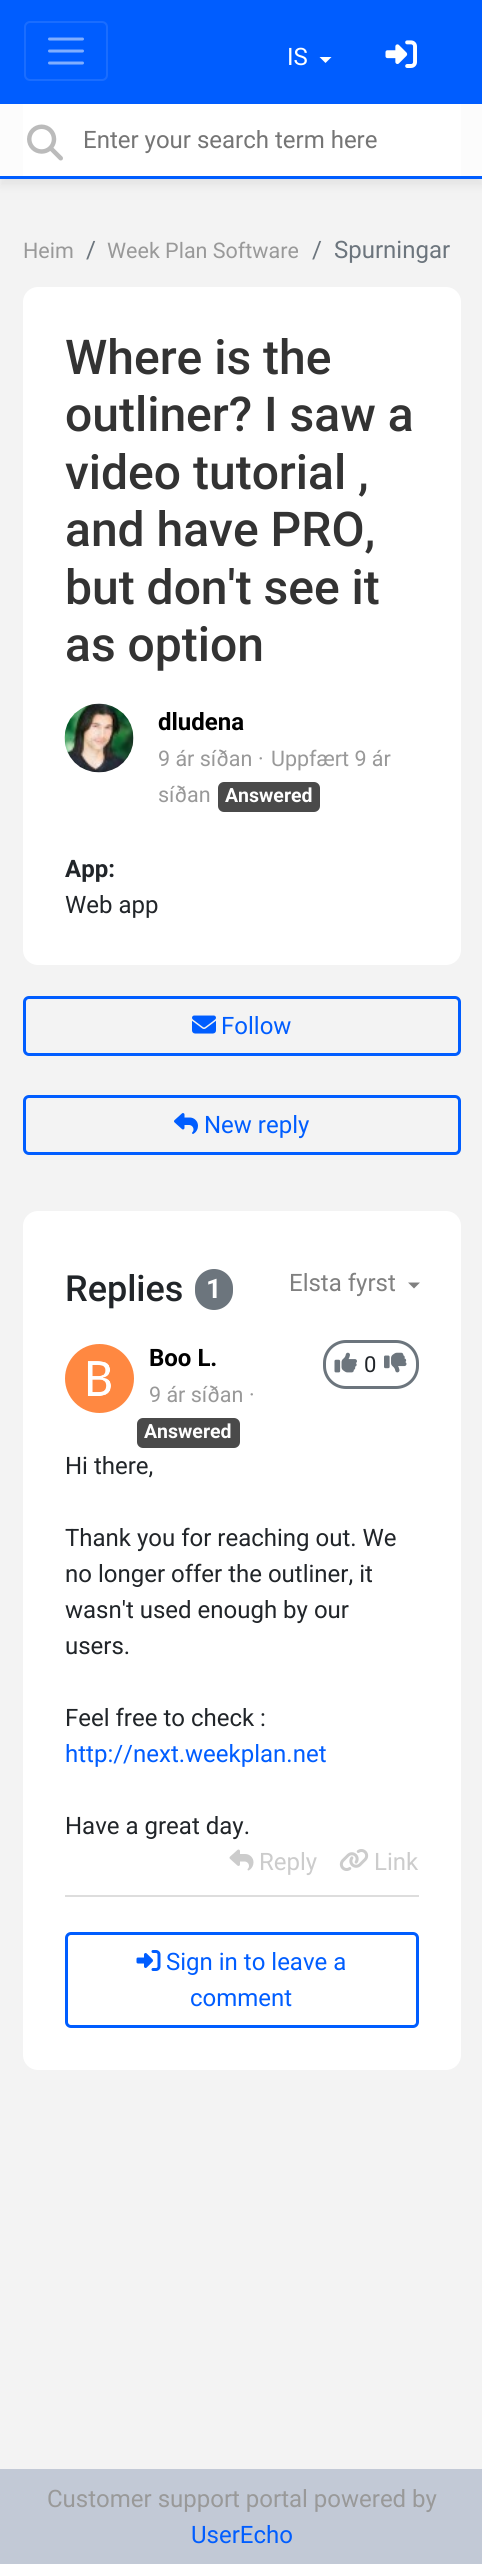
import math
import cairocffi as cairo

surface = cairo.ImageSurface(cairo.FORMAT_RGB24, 482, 2564)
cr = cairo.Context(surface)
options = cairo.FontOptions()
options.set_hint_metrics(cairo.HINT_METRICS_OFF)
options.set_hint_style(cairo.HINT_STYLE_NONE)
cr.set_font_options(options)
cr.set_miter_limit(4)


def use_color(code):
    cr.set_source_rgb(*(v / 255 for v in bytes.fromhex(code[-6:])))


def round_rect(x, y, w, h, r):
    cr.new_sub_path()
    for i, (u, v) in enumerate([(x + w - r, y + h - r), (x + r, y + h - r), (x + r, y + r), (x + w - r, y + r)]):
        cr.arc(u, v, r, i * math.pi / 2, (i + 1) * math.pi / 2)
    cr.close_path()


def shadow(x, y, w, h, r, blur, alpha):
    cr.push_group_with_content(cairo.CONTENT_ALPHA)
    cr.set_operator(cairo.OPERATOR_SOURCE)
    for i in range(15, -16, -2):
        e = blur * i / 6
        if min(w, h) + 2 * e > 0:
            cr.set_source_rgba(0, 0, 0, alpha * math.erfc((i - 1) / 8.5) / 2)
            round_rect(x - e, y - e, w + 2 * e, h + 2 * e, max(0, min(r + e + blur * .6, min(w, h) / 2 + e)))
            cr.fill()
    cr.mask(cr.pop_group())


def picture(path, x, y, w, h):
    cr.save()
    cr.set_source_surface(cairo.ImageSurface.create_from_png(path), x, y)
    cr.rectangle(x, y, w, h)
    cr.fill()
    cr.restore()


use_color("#f3f3f3")
cr.paint()
use_color("#005dff")
cr.rectangle(0, 0, 482, 104)
cr.fill()
round_rect(25, 22, 82, 58, 5)
use_color("#1a6dff")
cr.stroke()
cr.new_path()
cr.move_to(49.5, 39)
cr.line_to(82.5, 39)
cr.move_to(49.5, 51)
cr.line_to(82.5, 51)
cr.move_to(49.5, 63)
cr.line_to(82.5, 63)
use_color("#80aeff")
cr.set_line_width(3)
cr.set_line_cap(cairo.LINE_CAP_ROUND)
cr.stroke()
cr.select_font_face("Roboto")
cr.set_font_size(24)
use_color("#ffffff")
cr.move_to(287, 65)
cr.show_text("IS")
cr.new_path()
cr.move_to(319.5, 57)
cr.line_to(331.5, 57)
cr.line_to(325.5, 63)
cr.close_path()
cr.fill()
picture("img1.png", 385, 40, 32, 28)
use_color("#646464")
shadow(0, 111, 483, 75, 0, 4, 0.1)
use_color("#fcfcfc")
cr.rectangle(0, 104, 482, 72)
cr.fill()
use_color("#005dff")
cr.rectangle(0, 176, 482, 3)
cr.fill()
use_color("#ffffff")
cr.rectangle(23, 104, 438, 72)
cr.fill()
picture("img2.png", 27, 124, 36, 37)
use_color("#757575")
cr.move_to(83, 148)
cr.show_text("Enter your search term here")
cr.set_font_size(21.5)
use_color("#999999")
cr.move_to(23, 258)
cr.show_text("Heim")
cr.set_font_size(24)
use_color("#6c757d")
cr.move_to(86, 258)
cr.show_text("/")
cr.set_font_size(21.5)
use_color("#999999")
cr.move_to(107, 258)
cr.show_text("Week Plan Software")
cr.set_font_size(24)
use_color("#6c757d")
cr.move_to(312, 258)
cr.show_text("/")
cr.move_to(334, 258)
cr.show_text("Spurningar")
use_color("#ffffff")
round_rect(23, 287, 438, 678, 15)
cr.fill()
cr.select_font_face("Roboto Medium")
cr.set_font_size(48)
use_color("#333333")
cr.move_to(65, 374)
cr.show_text("Where is the")
cr.move_to(65, 431)
cr.show_text("outliner? I saw a")
cr.move_to(65, 489)
cr.show_text("video tutorial ,")
cr.move_to(65, 546)
cr.show_text("and have PRO,")
cr.move_to(65, 604)
cr.show_text("but don't see it")
cr.move_to(65, 661)
cr.show_text("as option")
picture("img3.png", 64, 703, 70, 70)
cr.select_font_face("Roboto", cairo.FONT_SLANT_NORMAL, cairo.FONT_WEIGHT_BOLD)
cr.set_font_size(24)
use_color("#000000")
cr.move_to(158, 730)
cr.show_text("dludena")
cr.select_font_face("Roboto")
cr.set_font_size(21.5)
use_color("#999999")
cr.move_to(158, 766)
cr.show_text("9 ár síðan")
cr.move_to(258, 766)
cr.show_text("·")
cr.move_to(271, 766)
cr.show_text("Uppfært 9 ár")
cr.move_to(158, 802)
cr.show_text("síðan")
use_color("#4a4a4a")
round_rect(218, 782, 102, 30, 6)
cr.fill()
cr.select_font_face("Roboto", cairo.FONT_SLANT_NORMAL, cairo.FONT_WEIGHT_BOLD)
cr.set_font_size(19.5)
use_color("#ffffff")
cr.move_to(225, 802)
cr.show_text("Answered")
cr.set_font_size(24)
use_color("#212529")
cr.move_to(65, 877)
cr.show_text("App:")
cr.select_font_face("Roboto")
cr.move_to(65, 913)
cr.show_text("Web app")
round_rect(24.5, 997.5, 435, 57, 4.5)
use_color("#005dff")
cr.set_line_cap(cairo.LINE_CAP_BUTT)
cr.stroke()
picture("img4.png", 192, 1015, 24, 19)
cr.move_to(221, 1034)
cr.show_text("Follow")
round_rect(24.5, 1096.5, 435, 57, 4.5)
cr.stroke()
picture("img5.png", 174, 1113, 24, 21)
cr.move_to(204, 1133)
cr.show_text("New reply")
use_color("#ffffff")
round_rect(23, 1211, 438, 859, 15)
cr.fill()
cr.select_font_face("Roboto Medium")
cr.set_font_size(36)
use_color("#212529")
cr.move_to(65, 1301)
cr.show_text("Replies")
use_color("#6c757d")
round_rect(195, 1269, 38, 41, 19)
cr.fill()
cr.select_font_face("Roboto", cairo.FONT_SLANT_NORMAL, cairo.FONT_WEIGHT_BOLD)
cr.set_font_size(27)
use_color("#ffffff")
cr.move_to(206, 1298)
cr.show_text("1")
cr.select_font_face("Roboto")
cr.set_font_size(24)
use_color("#808080")
cr.move_to(289, 1291)
cr.show_text("Elsta fyrst")
cr.new_path()
cr.move_to(408, 1282.5)
cr.line_to(420, 1282.5)
cr.line_to(414, 1288.5)
cr.close_path()
cr.fill()
use_color("#dddddd")
cr.rectangle(65, 1895, 354, 2)
cr.fill()
use_color("#ff8841")
cr.arc(99.5, 1378.5, 34.5, 0, 2 * math.pi)
cr.fill()
picture("img6.png", 87, 1361, 24, 35)
cr.select_font_face("Roboto", cairo.FONT_SLANT_NORMAL, cairo.FONT_WEIGHT_BOLD)
use_color("#000000")
cr.move_to(149, 1366)
cr.show_text("Boo L.")
cr.select_font_face("Roboto")
cr.set_font_size(21.5)
use_color("#999999")
cr.move_to(149, 1402)
cr.show_text("9 ár síðan")
cr.move_to(249, 1402)
cr.show_text("·")
use_color("#4a4a4a")
round_rect(137, 1418, 103, 30, 6)
cr.fill()
cr.select_font_face("Roboto", cairo.FONT_SLANT_NORMAL, cairo.FONT_WEIGHT_BOLD)
cr.set_font_size(19.5)
use_color("#ffffff")
cr.move_to(144, 1438)
cr.show_text("Answered")
round_rect(324.5, 1341.5, 93, 46, 21.5)
use_color("#6c757d")
cr.stroke()
picture("img7.png", 334, 1352, 23, 21)
cr.select_font_face("Roboto")
cr.set_font_size(22)
use_color("#212529")
cr.move_to(364, 1372)
cr.show_text("0")
picture("img8.png", 384, 1352, 23, 21)
cr.set_font_size(24)
cr.move_to(65, 1474)
cr.show_text("Hi there,")
cr.move_to(65, 1546)
cr.show_text("Thank you for reaching out. We")
cr.move_to(65, 1582)
cr.show_text("no longer offer the outliner, it")
cr.move_to(65, 1618)
cr.show_text("wasn't used enough by our")
cr.move_to(65, 1654)
cr.show_text("users.")
cr.move_to(65, 1726)
cr.show_text("Feel free to check :")
use_color("#005dff")
cr.move_to(65, 1762)
cr.show_text("http://next.weekplan.net")
use_color("#212529")
cr.move_to(65, 1834)
cr.show_text("Have a great day.")
picture("img9.png", 229, 1849, 25, 22)
use_color("#cccccc")
cr.move_to(259, 1870)
cr.show_text("Reply")
picture("img10.png", 339, 1849, 30, 22)
cr.move_to(374, 1870)
cr.show_text("Link")
round_rect(66.5, 1933.5, 351, 93, 4.5)
use_color("#005dff")
cr.stroke()
picture("img11.png", 136, 1950, 25, 21)
cr.move_to(166, 1970)
cr.show_text("Sign in to leave a")
cr.move_to(190, 2006)
cr.show_text("comment")
use_color("#c2c9d6")
cr.rectangle(0, 2469, 482, 95)
cr.fill()
use_color("#999999")
cr.move_to(47, 2507)
cr.show_text("Customer support portal powered by")
use_color("#005dff")
cr.move_to(191, 2543)
cr.show_text("UserEcho")
surface.write_to_png("result.png")
